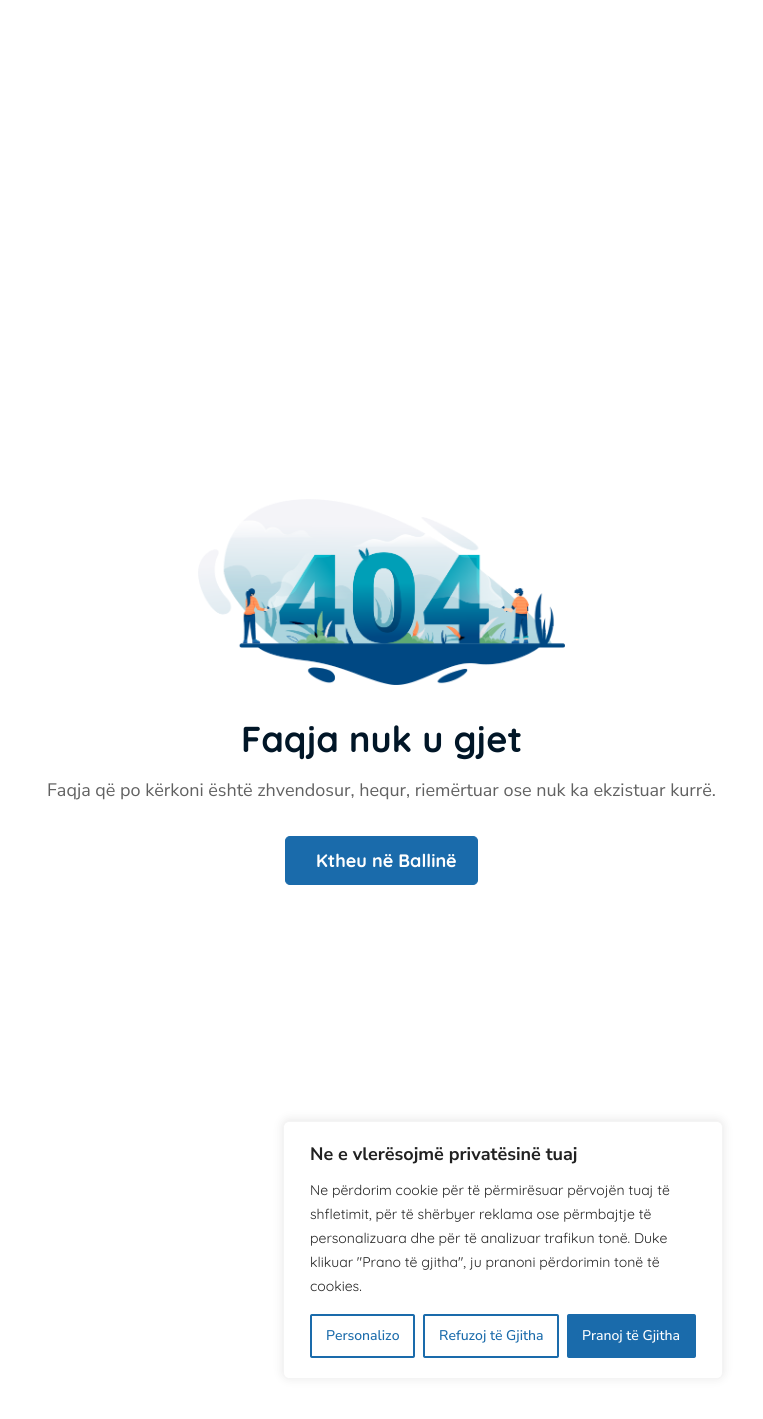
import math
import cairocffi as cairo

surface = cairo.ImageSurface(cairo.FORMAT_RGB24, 763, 1419)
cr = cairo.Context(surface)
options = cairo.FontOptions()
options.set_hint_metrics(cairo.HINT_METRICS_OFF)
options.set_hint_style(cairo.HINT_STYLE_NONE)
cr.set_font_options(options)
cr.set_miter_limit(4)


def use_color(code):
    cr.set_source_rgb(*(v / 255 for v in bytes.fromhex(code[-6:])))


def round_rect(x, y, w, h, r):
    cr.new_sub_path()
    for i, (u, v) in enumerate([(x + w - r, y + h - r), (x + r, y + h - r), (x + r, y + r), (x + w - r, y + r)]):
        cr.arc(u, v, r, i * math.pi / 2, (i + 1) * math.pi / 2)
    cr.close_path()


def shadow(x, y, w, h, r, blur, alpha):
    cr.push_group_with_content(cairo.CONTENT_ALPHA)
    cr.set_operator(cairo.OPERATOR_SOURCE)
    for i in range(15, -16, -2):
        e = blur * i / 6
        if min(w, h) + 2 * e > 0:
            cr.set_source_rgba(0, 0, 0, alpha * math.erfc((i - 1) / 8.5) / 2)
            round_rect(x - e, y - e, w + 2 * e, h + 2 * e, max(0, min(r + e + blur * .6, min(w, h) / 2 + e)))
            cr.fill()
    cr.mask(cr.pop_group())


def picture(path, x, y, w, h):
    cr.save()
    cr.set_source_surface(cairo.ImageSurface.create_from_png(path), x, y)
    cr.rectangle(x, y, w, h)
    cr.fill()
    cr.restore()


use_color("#ffffff")
cr.paint()
picture("img1.png", 198, 499, 367, 186)
cr.select_font_face("Quicksand", cairo.FONT_SLANT_NORMAL, cairo.FONT_WEIGHT_BOLD)
cr.set_font_size(36)
use_color("#011627")
cr.move_to(241, 752)
cr.show_text("Faqja nuk u gjet")
cr.select_font_face("Nunito Sans")
cr.set_font_size(18)
use_color("#616161")
cr.move_to(47, 796)
cr.show_text("Faqja që po kërkoni është zhvendosur, hequr, riemërtuar ose nuk ka ekzistuar kurrë.")
use_color("#1a6bab")
round_rect(285.5, 836.5, 192, 48, 4.5)
cr.fill_preserve()
cr.set_line_width(1)
cr.stroke()
cr.select_font_face("Quicksand", cairo.FONT_SLANT_NORMAL, cairo.FONT_WEIGHT_BOLD)
use_color("#ffffff")
cr.move_to(316, 867)
cr.show_text("Ktheu në Ballinë")
use_color("#acabab")
shadow(283, 1120, 440, 258, 6, 5, 0.3)
use_color("#ffffff")
round_rect(283.5, 1121.5, 439, 257, 5.5)
cr.fill_preserve()
use_color("#f4f4f4")
cr.stroke()
cr.select_font_face("Nunito Sans", cairo.FONT_SLANT_NORMAL, cairo.FONT_WEIGHT_BOLD)
use_color("#212121")
cr.move_to(310, 1160)
cr.show_text("Ne e vlerësojmë privatësinë tuaj")
cr.select_font_face("Quicksand")
cr.set_font_size(14)
cr.move_to(310, 1195)
cr.show_text("Ne përdorim cookie për të përmirësuar përvojën tuaj të")
cr.move_to(310, 1219)
cr.show_text("shfletimit, për të shërbyer reklama ose përmbajtje të")
cr.move_to(310, 1243)
cr.show_text("personalizuara dhe për të analizuar trafikun tonë. Duke")
cr.move_to(310, 1267)
cr.show_text("klikuar \"Prano të gjitha\", ju pranoni përdorimin tonë të")
cr.move_to(310, 1291)
cr.show_text("cookies.")
round_rect(311, 1315, 103, 42, 1)
use_color("#1a6bab")
cr.set_line_width(2)
cr.stroke()
cr.select_font_face("Nunito Sans Medium")
cr.move_to(326, 1340)
cr.show_text("Personalizo")
round_rect(424, 1315, 134, 42, 1)
cr.stroke()
cr.move_to(439, 1340)
cr.show_text("Refuzoj të Gjitha")
round_rect(568, 1315, 127, 42, 1)
cr.fill_preserve()
cr.stroke()
use_color("#ffffff")
cr.move_to(582, 1340)
cr.show_text("Pranoj të Gjitha")
surface.write_to_png("result.png")
